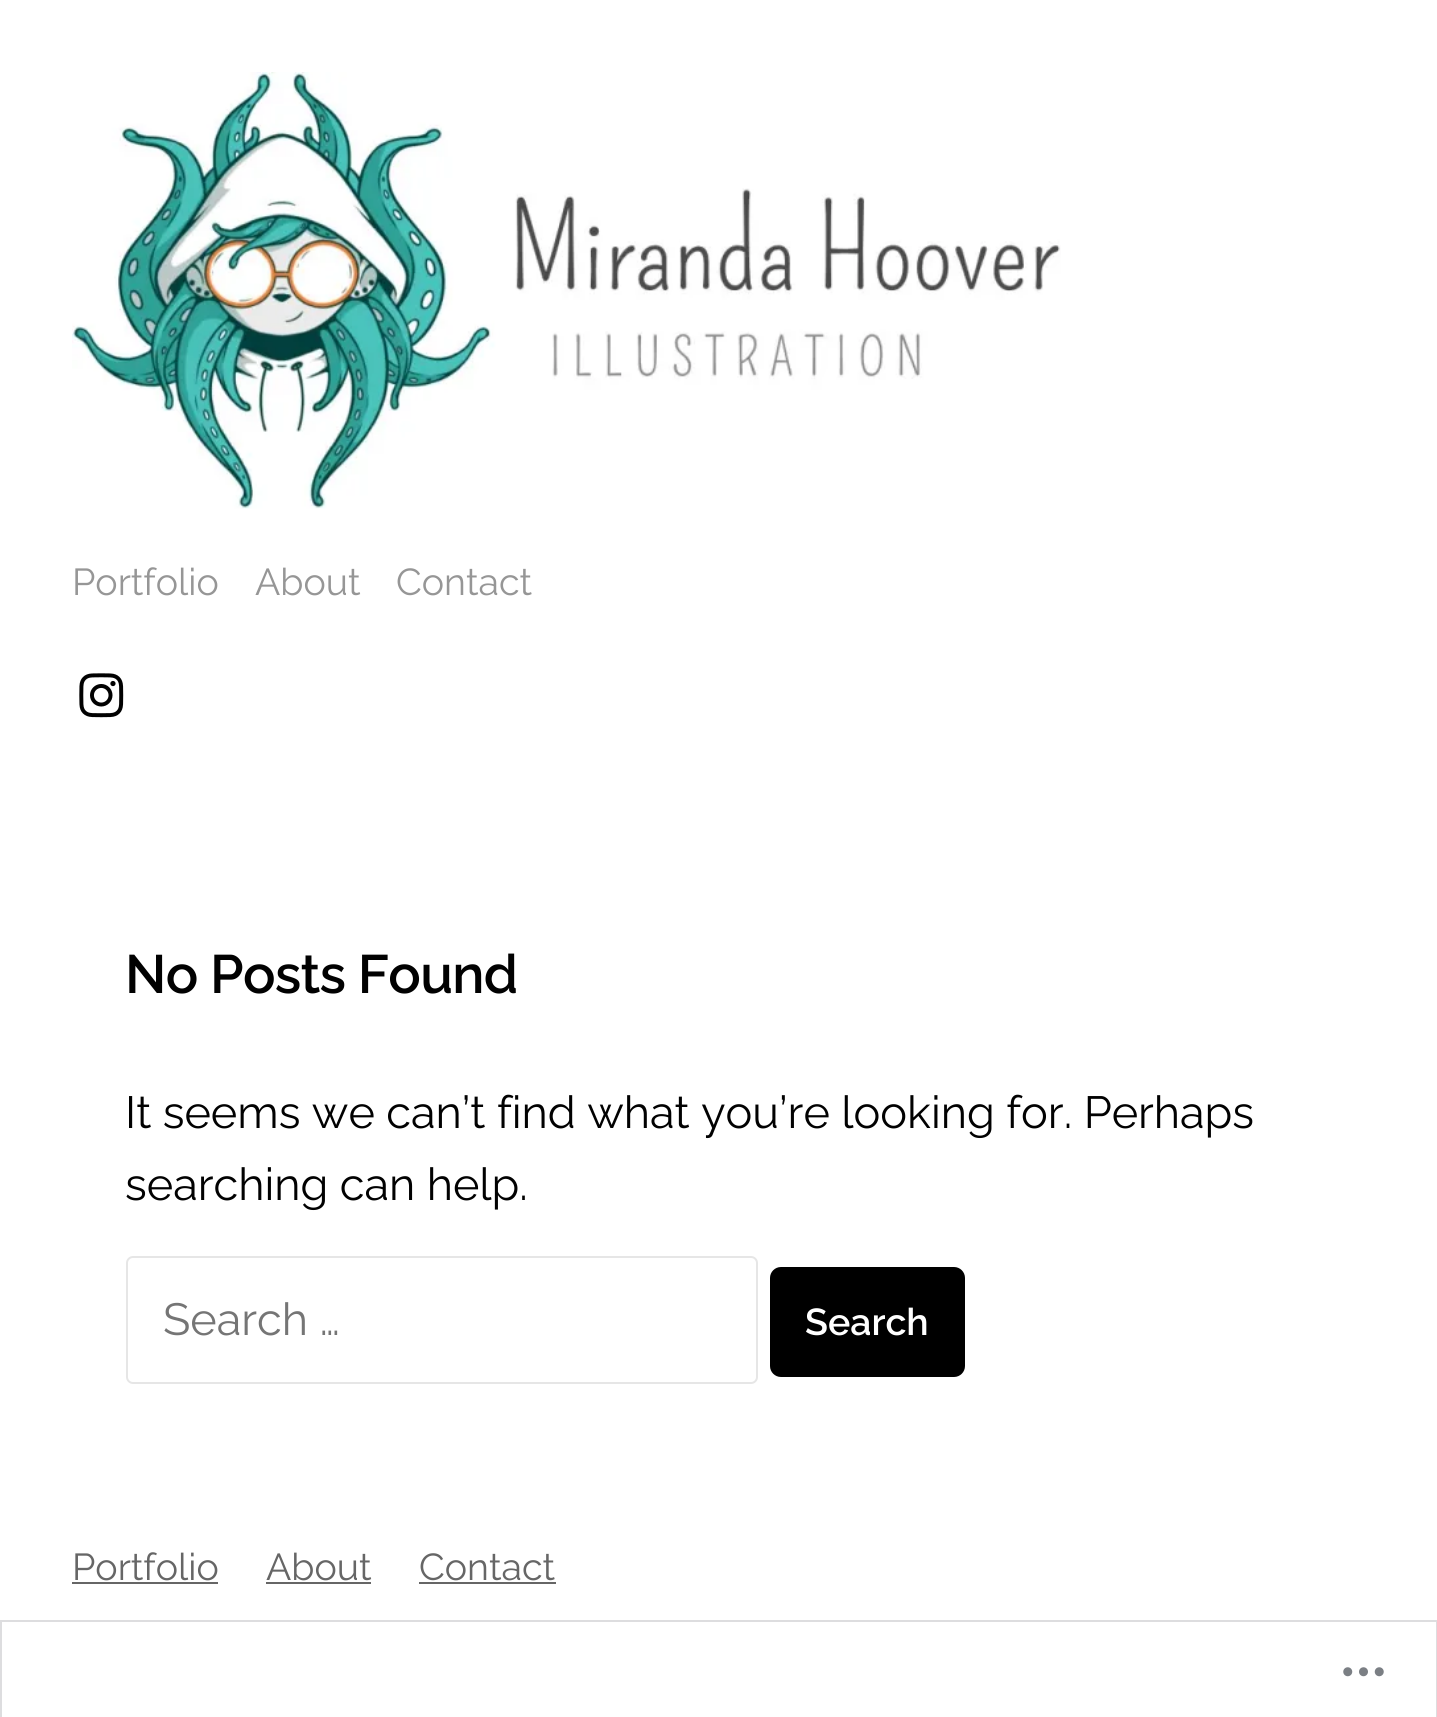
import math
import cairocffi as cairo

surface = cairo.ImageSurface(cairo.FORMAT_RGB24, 1437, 1717)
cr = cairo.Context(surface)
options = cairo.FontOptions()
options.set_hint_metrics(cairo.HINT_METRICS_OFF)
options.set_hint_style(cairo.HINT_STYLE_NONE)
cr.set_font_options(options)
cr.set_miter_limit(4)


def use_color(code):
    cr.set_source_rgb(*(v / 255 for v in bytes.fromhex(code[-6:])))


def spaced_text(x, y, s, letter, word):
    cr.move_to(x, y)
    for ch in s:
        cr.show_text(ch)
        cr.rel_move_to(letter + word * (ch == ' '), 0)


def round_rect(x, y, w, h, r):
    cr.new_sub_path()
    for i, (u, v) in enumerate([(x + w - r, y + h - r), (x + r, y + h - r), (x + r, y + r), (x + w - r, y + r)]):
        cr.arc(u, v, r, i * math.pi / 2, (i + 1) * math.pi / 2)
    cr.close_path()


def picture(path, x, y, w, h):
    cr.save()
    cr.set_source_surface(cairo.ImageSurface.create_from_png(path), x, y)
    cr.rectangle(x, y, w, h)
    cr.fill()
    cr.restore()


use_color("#ffffff")
cr.paint()
picture("img1.png", 72, 72, 989, 437)
cr.select_font_face("Raleway")
cr.set_font_size(37.5)
use_color("#969696")
cr.move_to(72, 595)
cr.show_text("Portfolio")
cr.move_to(255, 595)
cr.show_text("About")
cr.move_to(396, 595)
cr.show_text("Contact")
picture("img2.png", 79, 673, 45, 45)
cr.select_font_face("Raleway SemiBold")
cr.set_font_size(54)
use_color("#010101")
spaced_text(125, 993, "No Posts Found", -0.75, 0)
cr.select_font_face("Raleway")
cr.set_font_size(45)
cr.move_to(125, 1128)
cr.show_text("It seems we can’t find what you’re looking for. Perhaps")
cr.move_to(125, 1200)
cr.show_text("searching can help.")
round_rect(127, 1257, 630, 126, 6)
use_color("#e6e6e6")
cr.stroke()
use_color("#757575")
cr.move_to(163, 1335)
cr.show_text("Search …")
use_color("#000000")
round_rect(770, 1267, 195, 110, 11)
cr.fill()
cr.select_font_face("Raleway SemiBold")
cr.set_font_size(37.5)
use_color("#ffffff")
cr.move_to(805, 1335)
cr.show_text("Search")
cr.select_font_face("Raleway")
use_color("#666666")
cr.move_to(72, 1580)
cr.show_text("Portfolio")
cr.rectangle(72, 1582, 146, 2)
cr.fill()
cr.move_to(266, 1580)
cr.show_text("About")
cr.rectangle(266, 1582, 105, 2)
cr.fill()
cr.move_to(419, 1580)
cr.show_text("Contact")
cr.rectangle(419, 1582, 137, 2)
cr.fill()
cr.rectangle(1, 1621, 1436, 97)
use_color("#dddddf")
cr.stroke()
picture("img3.png", 1343, 1667, 41, 10)
surface.write_to_png("result.png")
